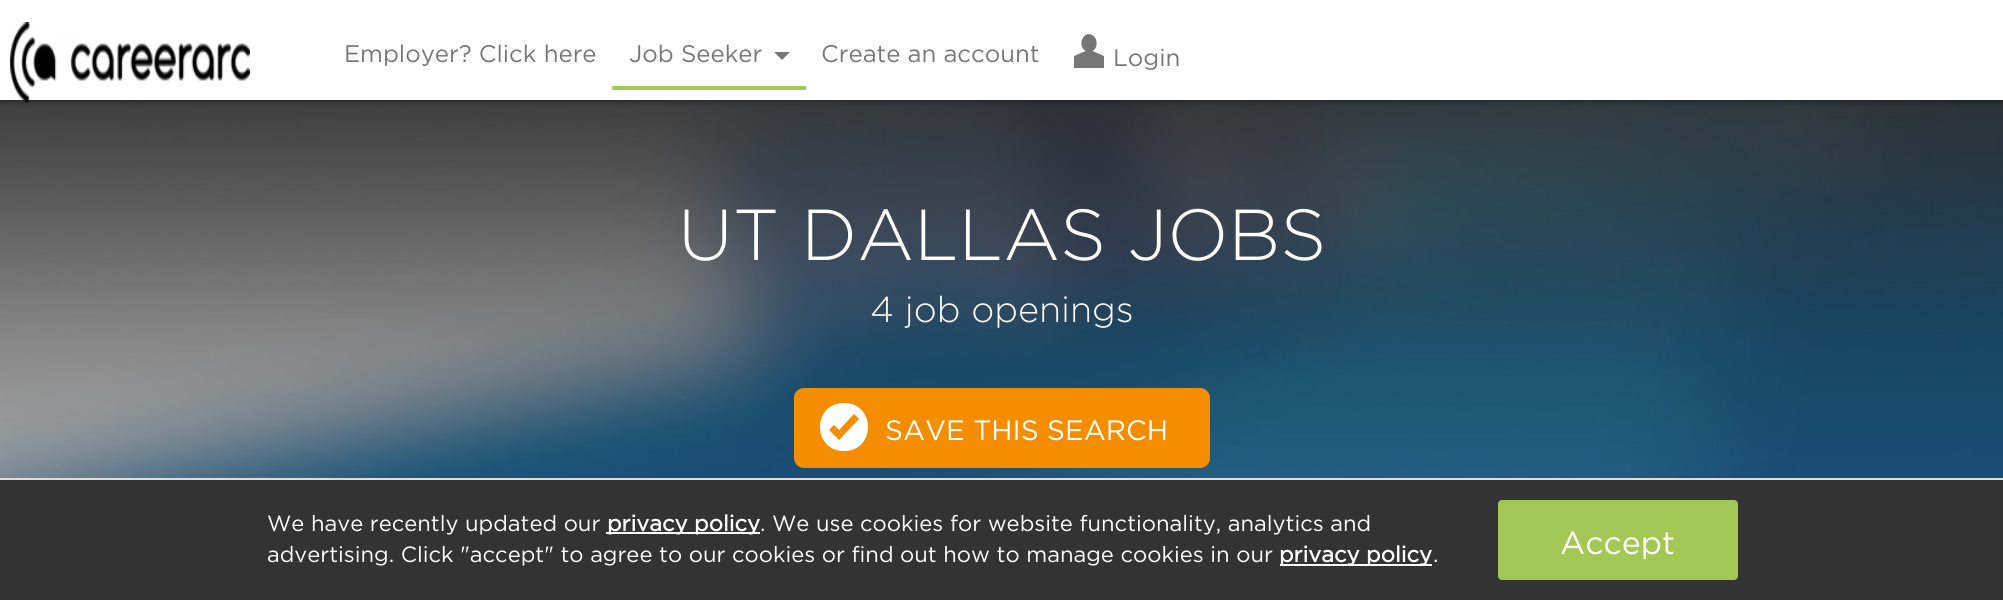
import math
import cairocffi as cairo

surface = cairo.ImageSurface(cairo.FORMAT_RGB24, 2003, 600)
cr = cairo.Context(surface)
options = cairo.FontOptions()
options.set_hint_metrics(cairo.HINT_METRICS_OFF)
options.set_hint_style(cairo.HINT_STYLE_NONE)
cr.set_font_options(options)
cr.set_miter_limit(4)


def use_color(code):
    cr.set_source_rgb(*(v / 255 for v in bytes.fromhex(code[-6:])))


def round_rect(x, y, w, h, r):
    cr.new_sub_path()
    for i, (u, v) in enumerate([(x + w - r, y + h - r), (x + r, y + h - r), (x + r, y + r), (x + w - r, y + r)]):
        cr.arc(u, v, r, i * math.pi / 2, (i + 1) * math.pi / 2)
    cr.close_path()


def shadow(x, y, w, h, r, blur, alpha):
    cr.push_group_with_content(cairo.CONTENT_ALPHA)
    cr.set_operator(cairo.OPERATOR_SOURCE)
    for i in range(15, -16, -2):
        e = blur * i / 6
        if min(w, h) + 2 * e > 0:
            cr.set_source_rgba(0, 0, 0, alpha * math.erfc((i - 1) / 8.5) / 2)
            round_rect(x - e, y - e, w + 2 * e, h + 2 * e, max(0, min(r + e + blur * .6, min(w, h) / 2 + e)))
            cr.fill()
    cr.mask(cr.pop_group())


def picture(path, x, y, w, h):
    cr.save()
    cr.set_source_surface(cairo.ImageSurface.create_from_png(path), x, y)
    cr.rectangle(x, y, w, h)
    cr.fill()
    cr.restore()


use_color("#ffffff")
cr.paint()
picture("img2.png", 0, 100, 2003, 378)
cr.save()
cr.rectangle(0, 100, 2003, 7)
cr.clip()
use_color("#000000")
shadow(0, 0, 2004, 100, 0, 4, 0.5)
cr.restore()
picture("img1.png", 10, 22, 240, 81)
cr.select_font_face("Gotham")
cr.set_font_size(24)
use_color("#777777")
cr.move_to(344, 62)
cr.show_text("Employer? Click here")
cr.move_to(629, 62)
cr.show_text("Job Seeker")
cr.new_path()
cr.move_to(774, 52)
cr.line_to(790, 52)
cr.line_to(782, 60)
cr.close_path()
cr.fill()
use_color("#a3c856")
cr.rectangle(612, 86, 194, 4)
cr.fill()
use_color("#777777")
cr.move_to(821, 62)
cr.show_text("Create an account")
cr.new_path()
cr.move_to(1104, 56)
cr.line_to(1104, 68)
cr.line_to(1074, 68)
cr.line_to(1074, 56)
cr.line_to(1085.5, 51)
cr.curve_to(1076, 45, 1084.5, 28.5, 1093.5, 36)
cr.curve_to(1095.5, 37.5, 1096.5, 40, 1096.5, 42.5)
cr.curve_to(1097, 46, 1095.5, 49.5, 1092.5, 51)
cr.close_path()
cr.fill()
cr.move_to(1113, 66)
cr.show_text("Login")
cr.select_font_face("Gotham Light")
cr.set_font_size(72)
use_color("#ffffff")
cr.move_to(678, 260)
cr.show_text("UT DALLAS JOBS")
cr.set_font_size(36)
cr.move_to(870, 322)
cr.show_text("4 job openings")
use_color("#f58d00")
round_rect(794, 388, 416, 80, 10)
cr.fill()
use_color("#ffffff")
cr.new_path()
cr.move_to(844, 403)
cr.curve_to(812, 403, 812, 451, 844, 451)
cr.curve_to(876, 451, 876, 403, 844, 403)
cr.close_path()
cr.move_to(854, 414)
cr.line_to(859, 419)
cr.line_to(839, 440)
cr.line_to(829, 430)
cr.line_to(834, 425)
cr.line_to(839, 430)
cr.close_path()
cr.fill()
cr.select_font_face("Gotham")
cr.set_font_size(28)
cr.move_to(885, 440)
cr.show_text("SAVE THIS SEARCH")
use_color("#333333")
cr.rectangle(0, 480, 2003, 120)
cr.fill()
use_color("#dddddd")
cr.rectangle(0, 478, 2003, 2)
cr.fill()
cr.set_font_size(22)
use_color("#ffffff")
cr.move_to(267, 531)
cr.show_text("We have recently updated our")
cr.rectangle(606, 532, 154, 2)
cr.fill()
cr.select_font_face("Gotham", cairo.FONT_SLANT_NORMAL, cairo.FONT_WEIGHT_BOLD)
cr.move_to(607, 531)
cr.show_text("privacy policy")
cr.select_font_face("Gotham")
cr.move_to(760, 531)
cr.show_text(". We use cookies for website functionality, analytics and")
cr.move_to(267, 562)
cr.show_text("advertising. Click \"accept\" to agree to our cookies or find out how to manage cookies in our")
cr.rectangle(1280, 564, 152, 2)
cr.fill()
cr.select_font_face("Gotham", cairo.FONT_SLANT_NORMAL, cairo.FONT_WEIGHT_BOLD)
cr.move_to(1279, 562)
cr.show_text("privacy policy")
cr.select_font_face("Gotham")
cr.move_to(1433, 562)
cr.show_text(".")
use_color("#a3c856")
round_rect(1499, 501, 238, 78, 3)
cr.fill_preserve()
cr.stroke()
cr.set_font_size(32)
use_color("#ffffff")
cr.move_to(1560, 554)
cr.show_text("Accept")
surface.write_to_png("result.png")
